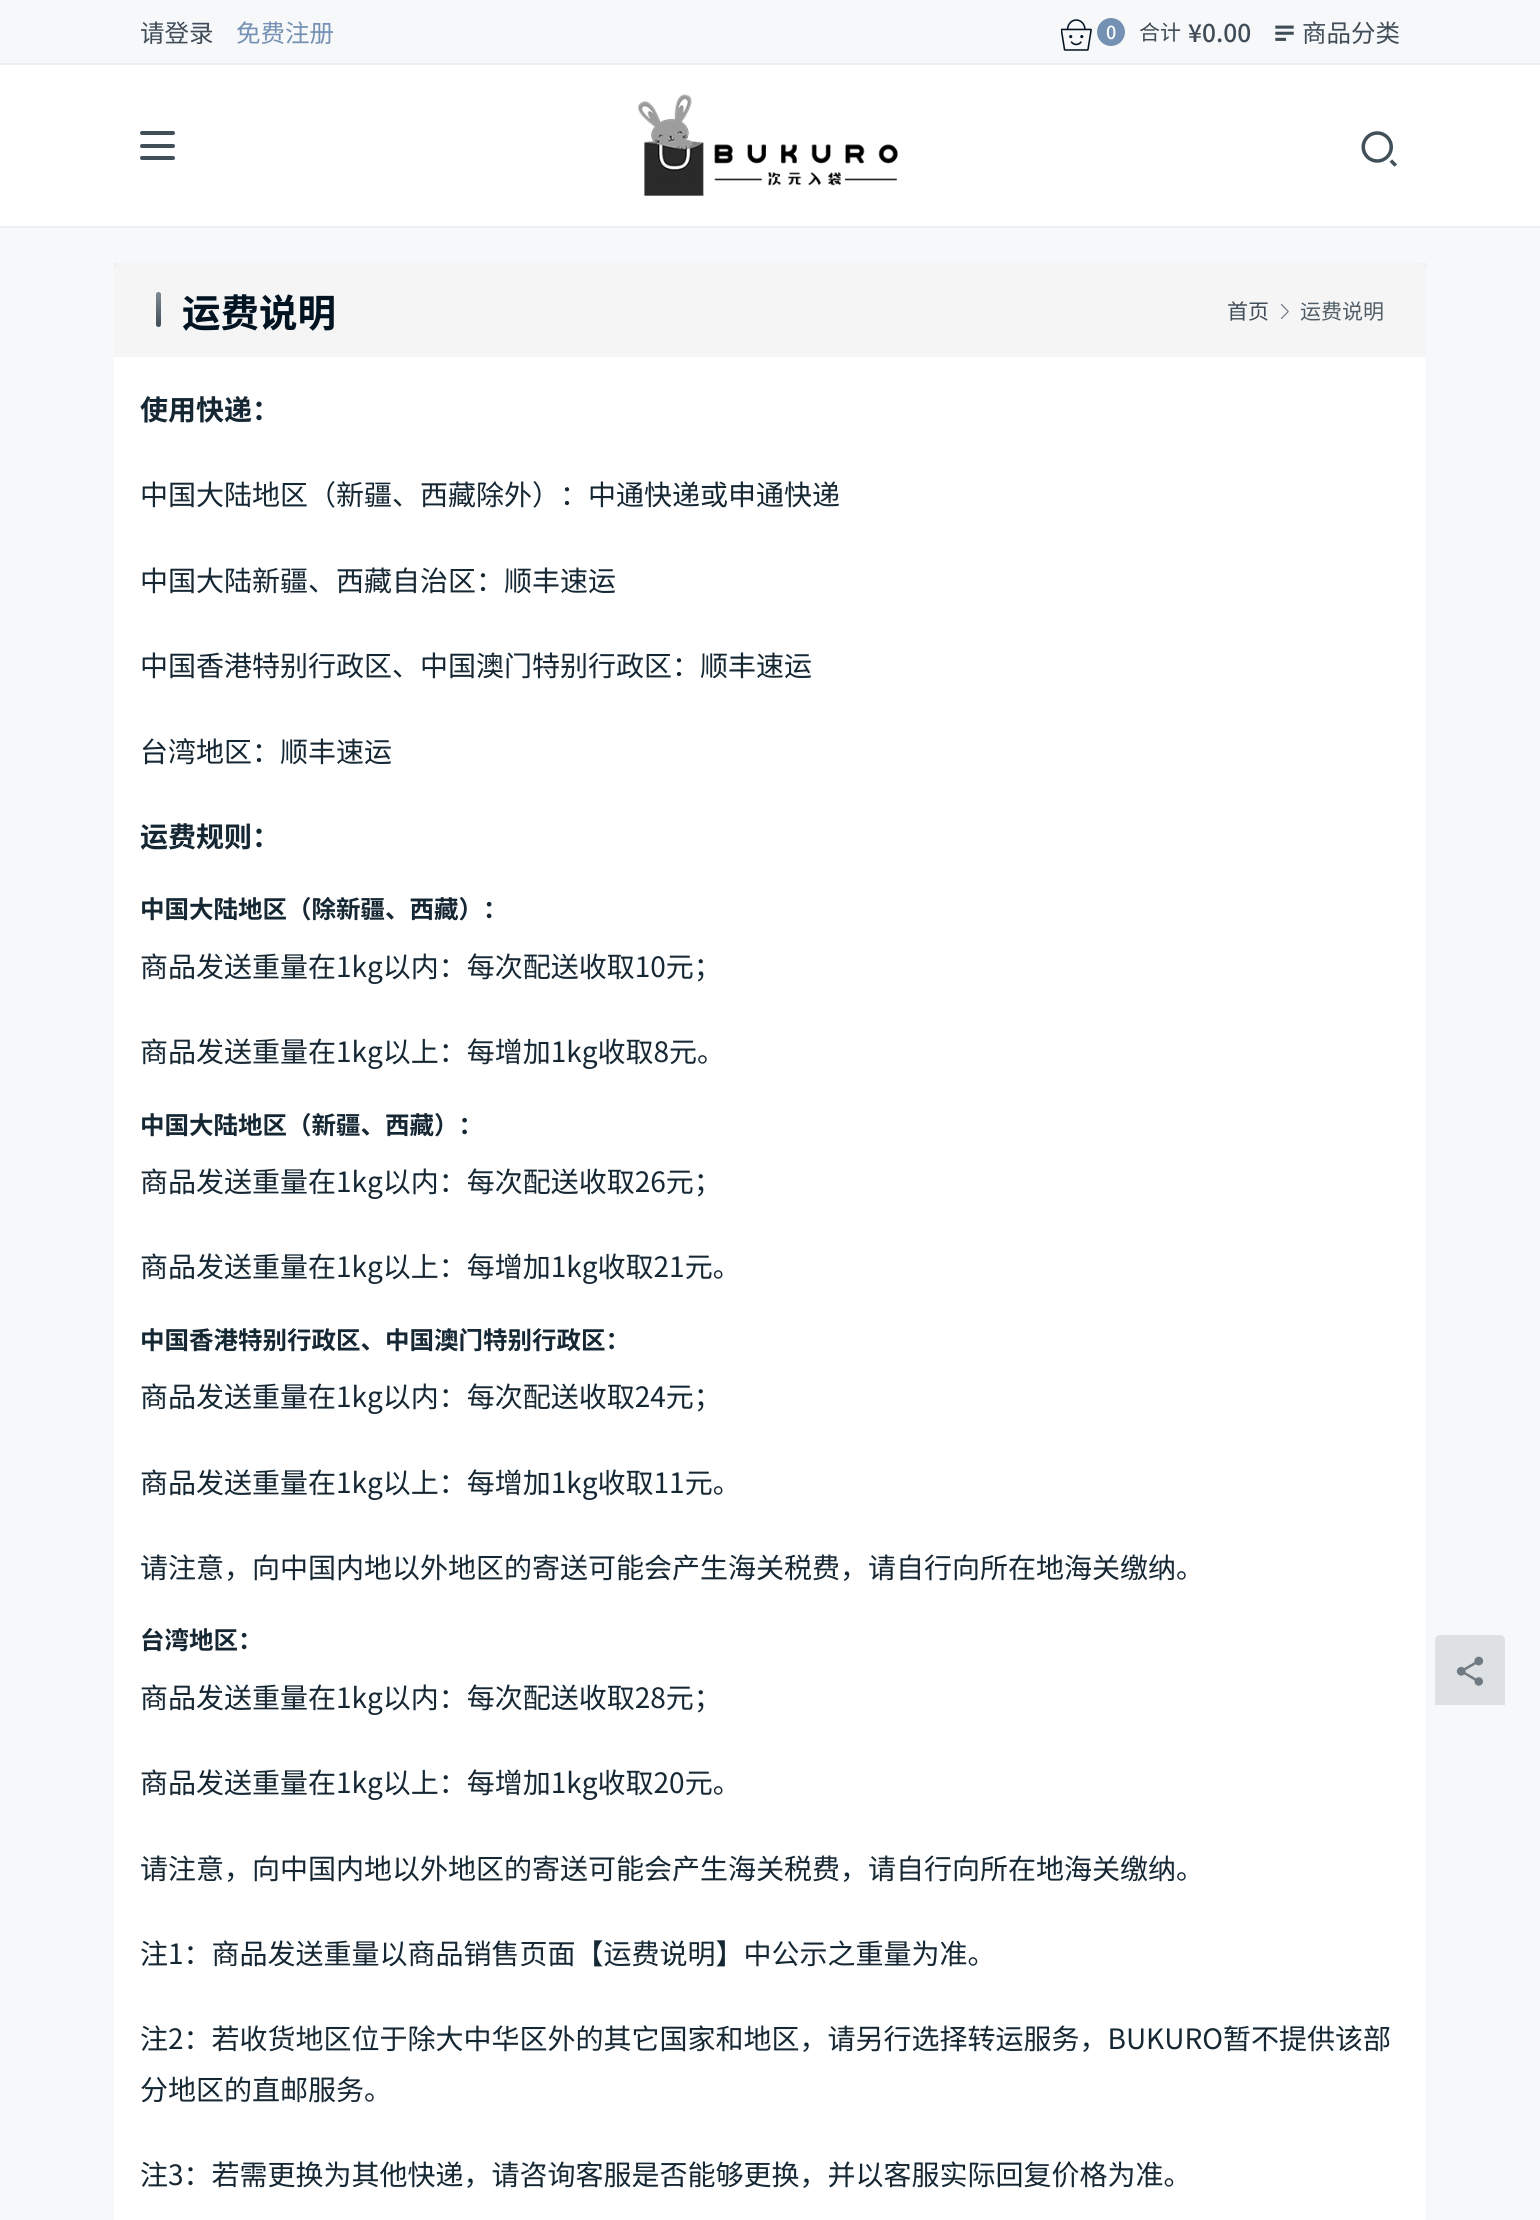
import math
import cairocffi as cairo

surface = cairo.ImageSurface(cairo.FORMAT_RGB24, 1540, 2220)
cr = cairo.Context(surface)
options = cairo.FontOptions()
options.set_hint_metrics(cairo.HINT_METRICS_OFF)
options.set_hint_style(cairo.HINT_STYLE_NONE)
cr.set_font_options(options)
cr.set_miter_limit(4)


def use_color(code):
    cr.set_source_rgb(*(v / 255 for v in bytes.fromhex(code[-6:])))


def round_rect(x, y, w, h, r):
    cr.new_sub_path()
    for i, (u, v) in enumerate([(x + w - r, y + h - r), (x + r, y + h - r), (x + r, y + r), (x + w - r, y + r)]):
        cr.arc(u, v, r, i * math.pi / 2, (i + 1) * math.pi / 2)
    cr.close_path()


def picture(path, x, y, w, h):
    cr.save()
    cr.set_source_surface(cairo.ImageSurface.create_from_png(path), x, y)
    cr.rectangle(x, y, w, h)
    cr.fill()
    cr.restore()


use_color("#f7f8f9")
cr.paint()
use_color("#ffffff")
cr.rectangle(0, 65, 1540, 161)
cr.fill()
use_color("#edeeef")
cr.rectangle(0, 226, 1540, 2)
cr.fill()
use_color("#ecedee")
cr.rectangle(0, 63, 1540, 2)
cr.fill()
cr.select_font_face("Noto Sans CJK SC")
cr.set_font_size(24.5)
use_color("#404d58")
cr.move_to(140, 42)
cr.show_text("请登录")
use_color("#7491b4")
cr.move_to(236, 42)
cr.show_text("免费注册")
picture("img1.png", 1061, 19, 31, 32)
cr.arc(1111, 32, 14, 0, 2 * math.pi)
cr.fill()
cr.select_font_face("Noto Sans CJK SC Medium")
cr.set_font_size(18)
use_color("#ffffff")
cr.move_to(1106, 39)
cr.show_text("0")
cr.select_font_face("Noto Sans CJK SC")
cr.set_font_size(21)
use_color("#404d58")
cr.move_to(1139, 40)
cr.show_text("合计")
cr.select_font_face("Noto Sans CJK SC Medium")
cr.set_font_size(24.5)
cr.move_to(1188, 42)
cr.show_text("¥0.00")
picture("img2.png", 1275, 25, 19, 16)
cr.select_font_face("Noto Sans CJK SC")
cr.move_to(1302, 42)
cr.show_text("商品分类")
use_color("#414f59")
round_rect(140, 131, 35, 4, 2)
cr.fill()
round_rect(140, 144, 35, 4, 2)
cr.fill()
round_rect(140, 156, 35, 4, 2)
cr.fill()
picture("img3.png", 1361, 131, 36, 36)
picture("img4.png", 638, 94, 260, 102)
use_color("#ffffff")
round_rect(114, 263, 1312, 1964, 7)
cr.fill()
cr.set_source_rgba(0.008, 0.078, 0.133, 0.04)
cr.rectangle(114, 263, 1312, 94)
cr.fill()
use_color("#3f4c57")
round_rect(156, 292, 5, 35, 2.5)
cr.fill()
gradient = cairo.LinearGradient(158, 292, 158, 327)
gradient.add_color_stop_rgba(0, 1, 1, 1, 0.35)
gradient.add_color_stop_rgba(1, 1, 1, 1, 0)
cr.set_source(gradient)
round_rect(156, 292, 5, 35, 2.5)
cr.fill()
cr.select_font_face("Noto Sans CJK SC", cairo.FONT_SLANT_NORMAL, cairo.FONT_WEIGHT_BOLD)
cr.set_font_size(38.5)
use_color("#021422")
cr.move_to(182, 327)
cr.show_text("运费说明")
cr.select_font_face("Noto Sans CJK SC")
cr.set_font_size(21)
use_color("#404d58")
cr.move_to(1227, 319)
cr.show_text("首页")
picture("img5.png", 1280, 304, 9, 15)
use_color("#515e67")
cr.move_to(1300, 319)
cr.show_text("运费说明")
cr.select_font_face("Noto Sans CJK SC", cairo.FONT_SLANT_NORMAL, cairo.FONT_WEIGHT_BOLD)
cr.set_font_size(28)
use_color("#162734")
cr.move_to(140, 420)
cr.show_text("使用快递：")
cr.select_font_face("Noto Sans CJK SC")
cr.move_to(140, 505)
cr.show_text("中国大陆地区（新疆、西藏除外）：中通快递或申通快递")
cr.move_to(140, 591)
cr.show_text("中国大陆新疆、西藏自治区：顺丰速运")
cr.move_to(140, 676)
cr.show_text("中国香港特别行政区、中国澳门特别行政区：顺丰速运")
cr.move_to(140, 762)
cr.show_text("台湾地区：顺丰速运")
cr.select_font_face("Noto Sans CJK SC", cairo.FONT_SLANT_NORMAL, cairo.FONT_WEIGHT_BOLD)
cr.move_to(140, 847)
cr.show_text("运费规则：")
cr.set_font_size(24.5)
cr.move_to(140, 918)
cr.show_text("中国大陆地区（除新疆、西藏）：")
cr.select_font_face("Noto Sans CJK SC")
cr.set_font_size(28)
cr.move_to(140, 977)
cr.show_text("商品发送重量在1kg以内：每次配送收取10元；")
cr.move_to(140, 1062)
cr.show_text("商品发送重量在1kg以上：每增加1kg收取8元。")
cr.select_font_face("Noto Sans CJK SC", cairo.FONT_SLANT_NORMAL, cairo.FONT_WEIGHT_BOLD)
cr.set_font_size(24.5)
cr.move_to(140, 1134)
cr.show_text("中国大陆地区（新疆、西藏）：")
cr.select_font_face("Noto Sans CJK SC")
cr.set_font_size(28)
cr.move_to(140, 1192)
cr.show_text("商品发送重量在1kg以内：每次配送收取26元；")
cr.move_to(140, 1277)
cr.show_text("商品发送重量在1kg以上：每增加1kg收取21元。")
cr.select_font_face("Noto Sans CJK SC", cairo.FONT_SLANT_NORMAL, cairo.FONT_WEIGHT_BOLD)
cr.set_font_size(24.5)
cr.move_to(140, 1349)
cr.show_text("中国香港特别行政区、中国澳门特别行政区：")
cr.select_font_face("Noto Sans CJK SC")
cr.set_font_size(28)
cr.move_to(140, 1407)
cr.show_text("商品发送重量在1kg以内：每次配送收取24元；")
cr.move_to(140, 1493)
cr.show_text("商品发送重量在1kg以上：每增加1kg收取11元。")
cr.move_to(140, 1578)
cr.show_text("请注意，向中国内地以外地区的寄送可能会产生海关税费，请自行向所在地海关缴纳。")
cr.select_font_face("Noto Sans CJK SC", cairo.FONT_SLANT_NORMAL, cairo.FONT_WEIGHT_BOLD)
cr.set_font_size(24.5)
cr.move_to(140, 1649)
cr.show_text("台湾地区：")
cr.select_font_face("Noto Sans CJK SC")
cr.set_font_size(28)
cr.move_to(140, 1708)
cr.show_text("商品发送重量在1kg以内：每次配送收取28元；")
cr.move_to(140, 1793)
cr.show_text("商品发送重量在1kg以上：每增加1kg收取20元。")
cr.move_to(140, 1879)
cr.show_text("请注意，向中国内地以外地区的寄送可能会产生海关税费，请自行向所在地海关缴纳。")
cr.move_to(140, 1964)
cr.show_text("注1：商品发送重量以商品销售页面【运费说明】中公示之重量为准。")
cr.move_to(140, 2049)
cr.show_text("注2：若收货地区位于除大中华区外的其它国家和地区，请另行选择转运服务，BUKURO暂不提供该部")
cr.move_to(140, 2100)
cr.show_text("分地区的直邮服务。")
cr.move_to(140, 2185)
cr.show_text("注3：若需更换为其他快递，请咨询客服是否能够更换，并以客服实际回复价格为准。")
use_color("#dee1e3")
cr.new_path()
cr.move_to(1440, 1635)
cr.line_to(1500, 1635)
cr.curve_to(1503, 1635, 1505, 1637, 1505, 1640)
cr.line_to(1505, 1705)
cr.line_to(1435, 1705)
cr.line_to(1435, 1640)
cr.curve_to(1435, 1637, 1437, 1635, 1440, 1635)
cr.close_path()
cr.fill()
picture("img6.png", 1456, 1656, 28, 30)
surface.write_to_png("result.png")
